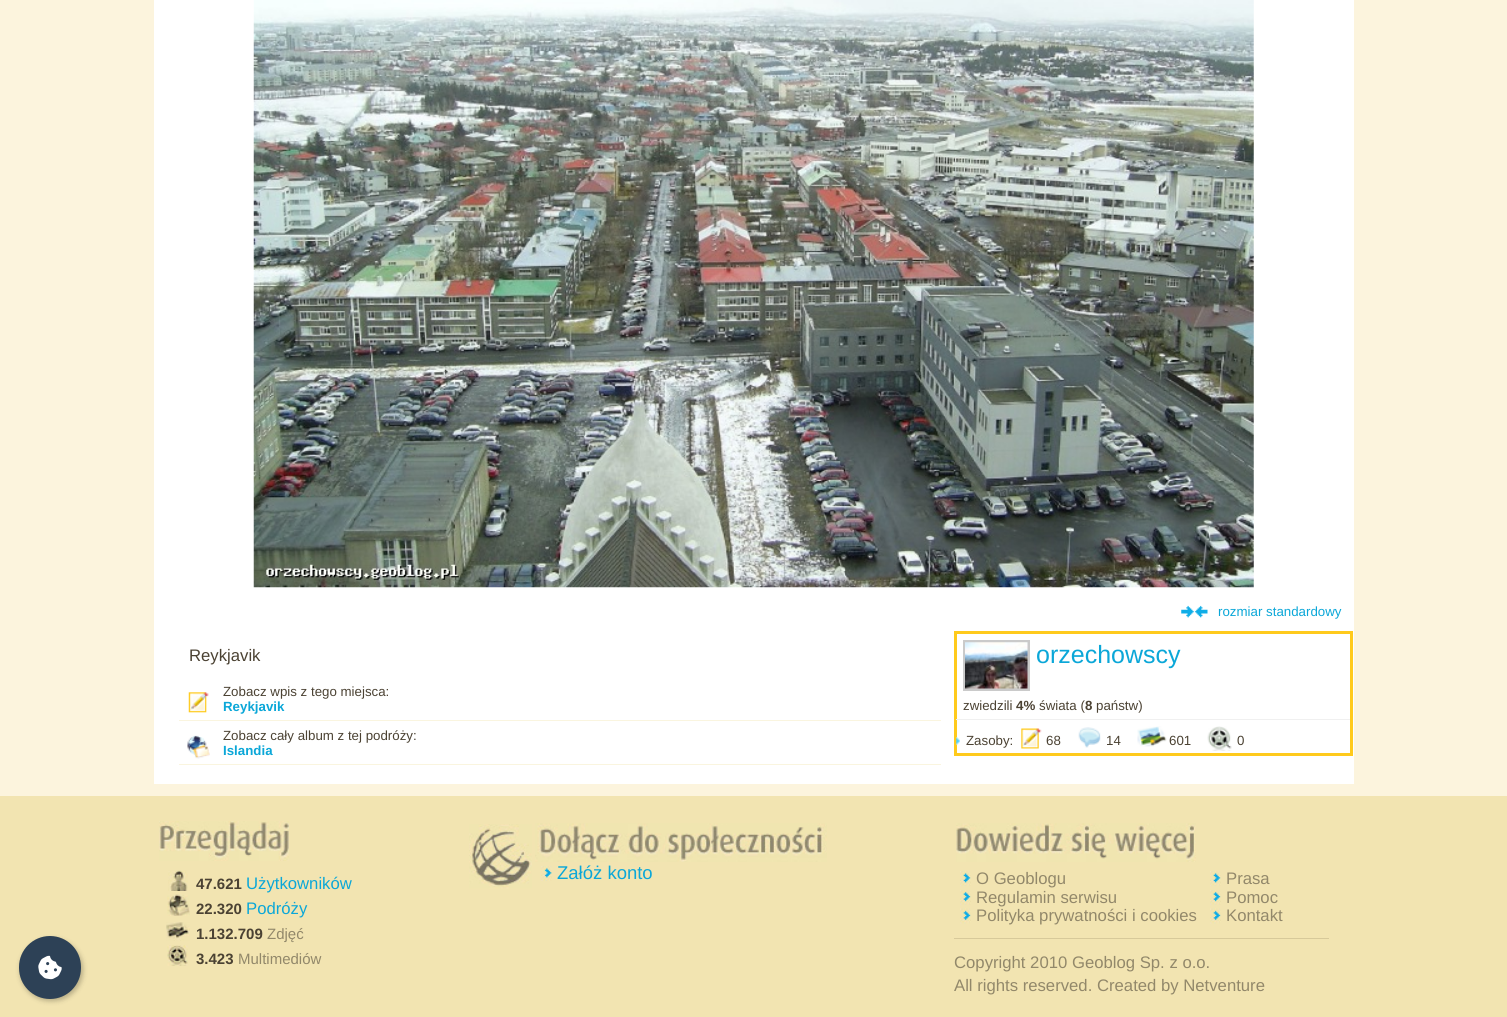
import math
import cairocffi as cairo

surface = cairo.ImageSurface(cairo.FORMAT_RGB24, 1507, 1017)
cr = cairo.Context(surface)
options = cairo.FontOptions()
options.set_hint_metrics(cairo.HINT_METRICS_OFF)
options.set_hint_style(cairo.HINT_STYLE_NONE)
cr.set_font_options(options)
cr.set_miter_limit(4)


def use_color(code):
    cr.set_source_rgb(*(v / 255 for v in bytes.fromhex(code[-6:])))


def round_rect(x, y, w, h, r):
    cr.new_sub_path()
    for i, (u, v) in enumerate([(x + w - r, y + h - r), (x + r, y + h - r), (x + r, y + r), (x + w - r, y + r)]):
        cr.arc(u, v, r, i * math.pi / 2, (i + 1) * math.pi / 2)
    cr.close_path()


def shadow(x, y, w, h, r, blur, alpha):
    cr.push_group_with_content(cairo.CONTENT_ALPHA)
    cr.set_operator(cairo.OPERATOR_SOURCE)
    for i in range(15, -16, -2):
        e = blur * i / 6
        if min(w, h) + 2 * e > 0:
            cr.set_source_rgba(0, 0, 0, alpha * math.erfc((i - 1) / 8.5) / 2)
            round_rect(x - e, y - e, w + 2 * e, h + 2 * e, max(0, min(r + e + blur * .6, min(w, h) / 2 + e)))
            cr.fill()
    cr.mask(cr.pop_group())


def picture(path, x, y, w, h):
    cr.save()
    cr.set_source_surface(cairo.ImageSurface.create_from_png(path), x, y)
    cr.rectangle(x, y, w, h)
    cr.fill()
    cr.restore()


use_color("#fcf4dd")
cr.paint()
use_color("#ffffff")
cr.rectangle(154, 0, 1200, 784)
cr.fill()
picture("img1.png", 253, 0, 1001, 588)
picture("img2.png", 1181, 605, 27, 13)
cr.select_font_face("Liberation Sans")
cr.set_font_size(13.3)
use_color("#0ba7d8")
cr.move_to(1218, 616)
cr.show_text("rozmiar standardowy")
cr.set_font_size(16.7)
use_color("#4b4233")
cr.move_to(189, 661)
cr.show_text("Reykjavik")
use_color("#faf5df")
cr.rectangle(179, 720, 762, 1)
cr.fill()
picture("img3.png", 188, 692, 21, 21)
cr.set_font_size(13.3)
use_color("#4b4233")
cr.move_to(223, 696)
cr.show_text("Zobacz wpis z tego miejsca:")
cr.select_font_face("Liberation Sans", cairo.FONT_SLANT_NORMAL, cairo.FONT_WEIGHT_BOLD)
use_color("#0ba7d8")
cr.move_to(223, 711)
cr.show_text("Reykjavik")
use_color("#faf5df")
cr.rectangle(179, 764, 762, 1)
cr.fill()
picture("img4.png", 187, 735, 23, 24)
cr.select_font_face("Liberation Sans")
use_color("#4b4233")
cr.move_to(223, 740)
cr.show_text("Zobacz cały album z tej podróży:")
cr.select_font_face("Liberation Sans", cairo.FONT_SLANT_NORMAL, cairo.FONT_WEIGHT_BOLD)
use_color("#0ba7d8")
cr.move_to(223, 755)
cr.show_text("Islandia")
cr.rectangle(955.5, 632.5, 396, 122)
use_color("#ffca1c")
cr.set_line_width(3)
cr.stroke()
use_color("#f0f0f0")
cr.rectangle(956, 719, 394, 1)
cr.fill()
cr.rectangle(964.5, 641.5, 64, 48)
use_color("#cacaca")
cr.stroke()
picture("img5.png", 965, 642, 63, 47)
cr.select_font_face("Liberation Sans")
cr.set_font_size(25)
use_color("#0ba7d8")
cr.move_to(1036, 663)
cr.show_text("orzechowscy")
cr.set_font_size(13.3)
use_color("#4b4233")
cr.move_to(963, 710)
cr.show_text("zwiedzili")
cr.select_font_face("Liberation Sans", cairo.FONT_SLANT_NORMAL, cairo.FONT_WEIGHT_BOLD)
cr.move_to(1016, 710)
cr.show_text("4%")
cr.select_font_face("Liberation Sans")
cr.move_to(1039, 710)
cr.show_text("świata (")
cr.select_font_face("Liberation Sans", cairo.FONT_SLANT_NORMAL, cairo.FONT_WEIGHT_BOLD)
cr.move_to(1085, 710)
cr.show_text("8")
cr.select_font_face("Liberation Sans")
cr.move_to(1096, 710)
cr.show_text("państw)")
picture("img6.png", 956, 737, 4, 8)
cr.move_to(966, 745)
cr.show_text("Zasoby:")
picture("img7.png", 1021, 728, 21, 21)
cr.move_to(1046, 745)
cr.show_text("68")
picture("img8.png", 1078, 727, 23, 21)
cr.move_to(1106, 745)
cr.show_text("14")
picture("img9.png", 1137, 726, 30, 21)
cr.move_to(1169, 745)
cr.show_text("601")
picture("img10.png", 1207, 726, 25, 25)
cr.move_to(1237, 745)
cr.show_text("0")
use_color("#f2e4b1")
cr.rectangle(0, 796, 1507, 221)
cr.fill()
use_color("#000000")
shadow(20, 939, 63, 62, 31, 2.5, 0.25)
use_color("#2d4156")
round_rect(19, 936, 62, 63, 31)
cr.fill()
picture("img11.png", 38, 955, 24, 25)
picture("img12.png", 469, 824, 63, 65)
picture("img13.png", 535, 823, 292, 39)
picture("img14.png", 541, 866, 11, 15)
cr.set_font_size(18.5)
use_color("#0ba7d8")
cr.move_to(557, 879)
cr.show_text("Załóż konto")
picture("img15.png", 159, 821, 130, 40)
picture("img16.png", 168, 870, 20, 21)
cr.select_font_face("Liberation Sans", cairo.FONT_SLANT_NORMAL, cairo.FONT_WEIGHT_BOLD)
cr.set_font_size(15)
use_color("#4b4233")
cr.move_to(196, 889)
cr.show_text("47.621")
cr.select_font_face("Liberation Sans")
cr.set_font_size(16.7)
use_color("#0ba7d8")
cr.move_to(246, 889)
cr.show_text("Użytkowników")
picture("img17.png", 167, 894, 23, 22)
cr.select_font_face("Liberation Sans", cairo.FONT_SLANT_NORMAL, cairo.FONT_WEIGHT_BOLD)
cr.set_font_size(15)
use_color("#4b4233")
cr.move_to(196, 914)
cr.show_text("22.320")
cr.select_font_face("Liberation Sans")
cr.set_font_size(16.7)
use_color("#0ba7d8")
cr.move_to(246, 914)
cr.show_text("Podróży")
picture("img18.png", 166, 922, 24, 19)
cr.select_font_face("Liberation Sans", cairo.FONT_SLANT_NORMAL, cairo.FONT_WEIGHT_BOLD)
cr.set_font_size(15)
use_color("#4b4233")
cr.move_to(196, 939)
cr.show_text("1.132.709")
cr.select_font_face("Liberation Sans")
use_color("#92886a")
cr.move_to(267, 939)
cr.show_text("Zdjęć")
picture("img19.png", 167, 945, 21, 21)
cr.select_font_face("Liberation Sans", cairo.FONT_SLANT_NORMAL, cairo.FONT_WEIGHT_BOLD)
use_color("#4b4233")
cr.move_to(196, 964)
cr.show_text("3.423")
cr.select_font_face("Liberation Sans")
use_color("#92886a")
cr.move_to(238, 964)
cr.show_text("Multimediów")
picture("img20.png", 956, 823, 240, 39)
use_color("#d7c99a")
cr.rectangle(954, 938, 375, 1)
cr.fill()
picture("img21.png", 960, 871, 11, 15)
cr.set_font_size(16.7)
use_color("#92886a")
cr.move_to(976, 884)
cr.show_text("O Geoblogu")
picture("img22.png", 960, 890, 11, 15)
cr.move_to(976, 903)
cr.show_text("Regulamin serwisu")
picture("img23.png", 960, 908, 11, 16)
cr.move_to(976, 921)
cr.show_text("Polityka prywatności i cookies")
picture("img24.png", 1210, 871, 11, 15)
cr.move_to(1226, 884)
cr.show_text("Prasa")
picture("img25.png", 1210, 890, 11, 15)
cr.move_to(1226, 903)
cr.show_text("Pomoc")
picture("img26.png", 1210, 908, 11, 16)
cr.move_to(1226, 921)
cr.show_text("Kontakt")
cr.move_to(954, 968)
cr.show_text("Copyright 2010 Geoblog Sp. z o.o.")
cr.move_to(954, 991)
cr.show_text("All rights reserved. Created by Netventure")
surface.write_to_png("result.png")
